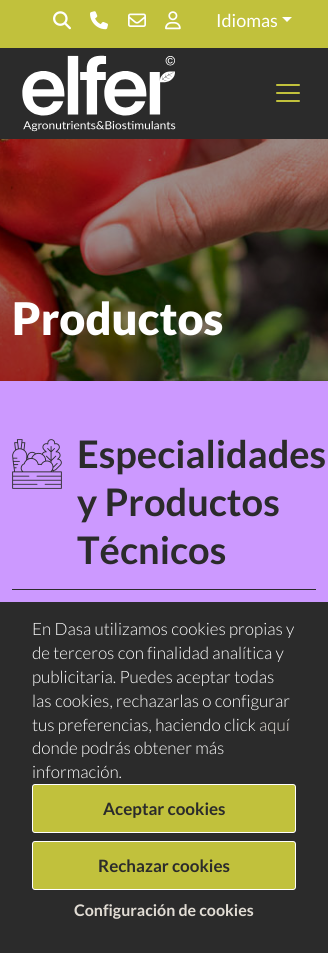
import math
import cairocffi as cairo

surface = cairo.ImageSurface(cairo.FORMAT_RGB24, 328, 953)
cr = cairo.Context(surface)
options = cairo.FontOptions()
options.set_hint_metrics(cairo.HINT_METRICS_OFF)
options.set_hint_style(cairo.HINT_STYLE_NONE)
cr.set_font_options(options)
cr.set_miter_limit(4)


def use_color(code):
    cr.set_source_rgb(*(v / 255 for v in bytes.fromhex(code[-6:])))


def round_rect(x, y, w, h, r):
    cr.new_sub_path()
    for i, (u, v) in enumerate([(x + w - r, y + h - r), (x + r, y + h - r), (x + r, y + r), (x + w - r, y + r)]):
        cr.arc(u, v, r, i * math.pi / 2, (i + 1) * math.pi / 2)
    cr.close_path()


def picture(path, x, y, w, h):
    cr.save()
    cr.set_source_surface(cairo.ImageSurface.create_from_png(path), x, y)
    cr.rectangle(x, y, w, h)
    cr.fill()
    cr.restore()


use_color("#cc99ff")
cr.paint()
use_color("#2b2b2b")
cr.rectangle(0, 48, 328, 91)
cr.fill()
use_color("#c1c13c")
cr.rectangle(0, 0, 328, 48)
cr.fill()
picture("img1.png", 53, 11, 18, 19)
picture("img2.png", 90, 11, 18, 19)
picture("img3.png", 128, 13, 18, 14)
picture("img4.png", 165, 11, 16, 19)
cr.select_font_face("Lato")
cr.set_font_size(18)
use_color("#ffffff")
cr.move_to(216, 27)
cr.show_text("Idiomas")
cr.new_path()
cr.move_to(282, 17)
cr.line_to(292, 17)
cr.line_to(287, 22)
cr.close_path()
cr.fill()
picture("img5.png", 22, 55, 154, 77)
picture("img6.png", 276, 84, 24, 18)
picture("img7.png", 0, 139, 328, 242)
cr.select_font_face("Lato Black")
cr.set_font_size(45)
cr.move_to(12, 335)
cr.show_text("Productos")
picture("img8.png", 12, 439, 50, 50)
cr.select_font_face("Lato", cairo.FONT_SLANT_NORMAL, cairo.FONT_WEIGHT_BOLD)
cr.set_font_size(38)
use_color("#2b2b2b")
cr.move_to(77, 468)
cr.show_text("Especialidades")
cr.move_to(77, 516)
cr.show_text("y Productos")
cr.move_to(77, 564)
cr.show_text("Técnicos")
cr.rectangle(12, 589, 304, 1)
cr.fill()
cr.rectangle(0, 602, 328, 351)
cr.fill()
cr.select_font_face("Lato Light")
cr.set_font_size(17)
use_color("#ffffff")
cr.move_to(32, 635)
cr.show_text("En Dasa utilizamos cookies propias y")
cr.move_to(32, 659)
cr.show_text("de terceros con finalidad analítica y")
cr.move_to(32, 683)
cr.show_text("publicitaria. Puedes aceptar todas")
cr.move_to(32, 707)
cr.show_text("las cookies, rechazarlas o configurar")
cr.move_to(32, 731)
cr.show_text("tus preferencias, haciendo click")
use_color("#e2ddd5")
cr.move_to(259, 731)
cr.show_text("aquí")
use_color("#ffffff")
cr.move_to(32, 754)
cr.show_text("donde podrás obtener más")
cr.move_to(32, 778)
cr.show_text("información.")
use_color("#c1c13c")
round_rect(32.5, 784.5, 263, 48, 2.5)
cr.fill_preserve()
use_color("#ffffff")
cr.set_line_width(1)
cr.stroke()
cr.select_font_face("Lato", cairo.FONT_SLANT_NORMAL, cairo.FONT_WEIGHT_BOLD)
use_color("#2b2b2b")
cr.move_to(103, 815)
cr.show_text("Aceptar cookies")
use_color("#c1c13c")
round_rect(32.5, 841.5, 263, 48, 2.5)
cr.fill_preserve()
use_color("#ffffff")
cr.stroke()
use_color("#2b2b2b")
cr.move_to(98, 872)
cr.show_text("Rechazar cookies")
cr.set_font_size(16)
use_color("#e2ddd5")
cr.move_to(74, 916)
cr.show_text("Configuración de cookies")
surface.write_to_png("result.png")
